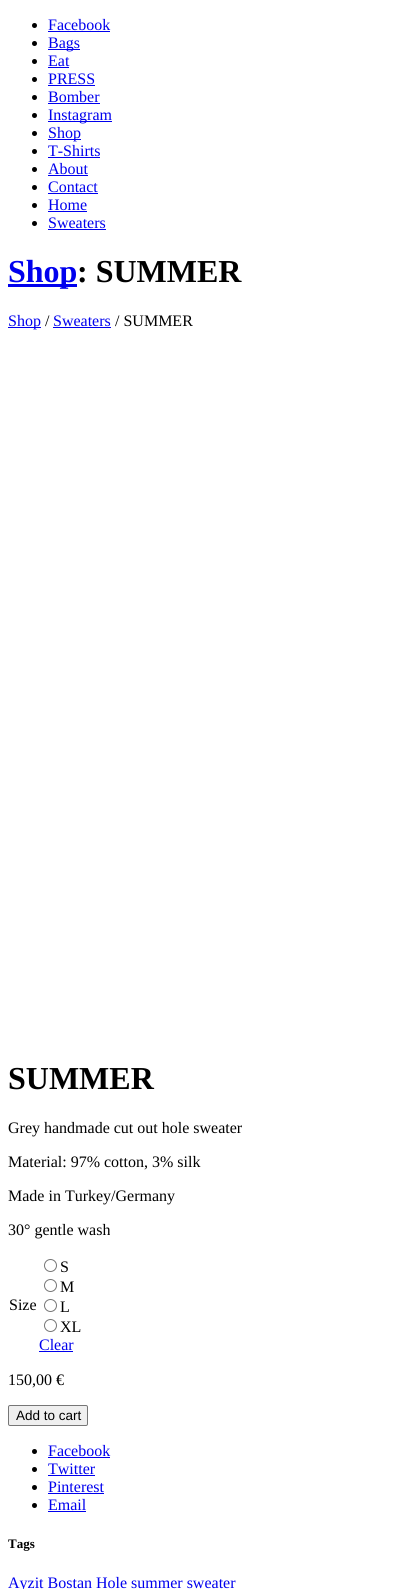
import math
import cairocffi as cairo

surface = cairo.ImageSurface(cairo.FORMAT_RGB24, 416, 1589)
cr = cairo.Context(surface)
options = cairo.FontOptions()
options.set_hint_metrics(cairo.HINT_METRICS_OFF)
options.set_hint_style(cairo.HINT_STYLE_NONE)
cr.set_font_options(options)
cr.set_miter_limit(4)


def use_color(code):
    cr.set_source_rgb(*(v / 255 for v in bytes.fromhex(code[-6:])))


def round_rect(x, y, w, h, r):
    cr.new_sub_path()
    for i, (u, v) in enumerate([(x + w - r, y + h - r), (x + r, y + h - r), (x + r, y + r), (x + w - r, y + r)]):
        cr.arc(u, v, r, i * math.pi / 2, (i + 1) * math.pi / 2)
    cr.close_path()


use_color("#ffffff")
cr.paint()
use_color("#000000")
cr.arc(34.5, 25.5, 2.5, 0, 2 * math.pi)
cr.fill()
cr.select_font_face("Liberation Serif")
cr.set_font_size(16)
use_color("#0000ee")
cr.move_to(48, 30)
cr.show_text("Facebook")
cr.rectangle(48, 31, 62, 1)
cr.fill()
use_color("#000000")
cr.arc(34.5, 43.5, 2.5, 0, 2 * math.pi)
cr.fill()
use_color("#0000ee")
cr.rectangle(48, 49, 32, 1)
cr.fill()
cr.move_to(48, 48)
cr.show_text("Bags")
use_color("#000000")
cr.new_path()
cr.arc(34.5, 61.5, 2.5, 0, 2 * math.pi)
cr.fill()
use_color("#0000ee")
cr.move_to(48, 66)
cr.show_text("Eat")
cr.rectangle(48, 67, 21, 1)
cr.fill()
use_color("#000000")
cr.arc(34.5, 79.5, 2.5, 0, 2 * math.pi)
cr.fill()
use_color("#0000ee")
cr.move_to(48, 84)
cr.show_text("PRESS")
cr.rectangle(48, 85, 47, 1)
cr.fill()
use_color("#000000")
cr.arc(34.5, 97.5, 2.5, 0, 2 * math.pi)
cr.fill()
use_color("#0000ee")
cr.move_to(48, 102)
cr.show_text("Bomber")
cr.rectangle(48, 103, 52, 1)
cr.fill()
use_color("#000000")
cr.arc(34.5, 115.5, 2.5, 0, 2 * math.pi)
cr.fill()
use_color("#0000ee")
cr.rectangle(48, 121, 64, 1)
cr.fill()
cr.move_to(48, 120)
cr.show_text("Instagram")
use_color("#000000")
cr.new_path()
cr.arc(34.5, 133.5, 2.5, 0, 2 * math.pi)
cr.fill()
use_color("#0000ee")
cr.rectangle(48, 139, 33, 1)
cr.fill()
cr.move_to(48, 138)
cr.show_text("Shop")
use_color("#000000")
cr.new_path()
cr.arc(34.5, 151.5, 2.5, 0, 2 * math.pi)
cr.fill()
use_color("#0000ee")
cr.move_to(48, 156)
cr.show_text("T-Shirts")
cr.rectangle(48, 157, 52, 1)
cr.fill()
use_color("#000000")
cr.arc(34.5, 169.5, 2.5, 0, 2 * math.pi)
cr.fill()
use_color("#0000ee")
cr.move_to(48, 174)
cr.show_text("About")
cr.rectangle(48, 175, 40, 1)
cr.fill()
use_color("#000000")
cr.arc(34.5, 187.5, 2.5, 0, 2 * math.pi)
cr.fill()
use_color("#0000ee")
cr.move_to(48, 192)
cr.show_text("Contact")
cr.rectangle(48, 193, 50, 1)
cr.fill()
use_color("#000000")
cr.arc(34.5, 205.5, 2.5, 0, 2 * math.pi)
cr.fill()
use_color("#0000ee")
cr.move_to(48, 210)
cr.show_text("Home")
cr.rectangle(48, 211, 39, 1)
cr.fill()
use_color("#000000")
cr.arc(34.5, 223.5, 2.5, 0, 2 * math.pi)
cr.fill()
use_color("#0000ee")
cr.move_to(48, 228)
cr.show_text("Sweaters")
cr.rectangle(48, 229, 58, 1)
cr.fill()
cr.rectangle(8, 284, 69, 3)
cr.fill()
cr.select_font_face("Liberation Serif", cairo.FONT_SLANT_NORMAL, cairo.FONT_WEIGHT_BOLD)
cr.set_font_size(32)
cr.move_to(8, 282)
cr.show_text("Shop")
use_color("#000000")
cr.move_to(77, 282)
cr.show_text(": SUMMER")
use_color("#0000ee")
cr.rectangle(8, 327, 33, 1)
cr.fill()
cr.select_font_face("Liberation Serif")
cr.set_font_size(16)
cr.move_to(8, 326)
cr.show_text("Shop")
use_color("#000000")
cr.move_to(45, 326)
cr.show_text("/")
use_color("#0000ee")
cr.move_to(53, 326)
cr.show_text("Sweaters")
cr.rectangle(53, 327, 58, 1)
cr.fill()
use_color("#000000")
cr.move_to(115, 326)
cr.show_text("/ SUMMER")
cr.select_font_face("Liberation Serif", cairo.FONT_SLANT_NORMAL, cairo.FONT_WEIGHT_BOLD)
cr.set_font_size(32)
cr.move_to(8, 1089)
cr.show_text("SUMMER")
cr.select_font_face("Liberation Serif")
cr.set_font_size(16)
cr.move_to(8, 1133)
cr.show_text("Grey handmade cut out hole sweater")
cr.move_to(8, 1167)
cr.show_text("Material: 97% cotton, 3% silk")
cr.move_to(8, 1201)
cr.show_text("Made in Turkey/Germany")
cr.move_to(8, 1235)
cr.show_text("30° gentle wash")
cr.move_to(9, 1310)
cr.show_text("Size")
cr.new_path()
cr.arc(50.5, 1265.5, 6, 0, 2 * math.pi)
use_color("#767676")
cr.set_line_width(1)
cr.stroke()
use_color("#000000")
cr.move_to(60, 1272)
cr.show_text("S")
cr.new_path()
cr.arc(50.5, 1285.5, 6, 0, 2 * math.pi)
use_color("#767676")
cr.stroke()
use_color("#000000")
cr.move_to(60, 1292)
cr.show_text("M")
cr.new_path()
cr.arc(50.5, 1305.5, 6, 0, 2 * math.pi)
use_color("#767676")
cr.stroke()
use_color("#000000")
cr.move_to(60, 1312)
cr.show_text("L")
cr.new_path()
cr.arc(50.5, 1325.5, 6, 0, 2 * math.pi)
use_color("#767676")
cr.stroke()
use_color("#000000")
cr.move_to(60, 1332)
cr.show_text("XL")
use_color("#0000ee")
cr.move_to(39, 1350)
cr.show_text("Clear")
cr.rectangle(39, 1351, 34, 1)
cr.fill()
use_color("#000000")
cr.move_to(8, 1385)
cr.show_text("150,00 €")
use_color("#efefef")
round_rect(8.5, 1405.5, 79, 20, 1.5)
cr.fill_preserve()
use_color("#767676")
cr.stroke()
cr.select_font_face("Liberation Sans")
cr.set_font_size(13.5)
use_color("#000000")
cr.move_to(16, 1420)
cr.show_text("Add to cart")
cr.new_path()
cr.arc(34.5, 1451.5, 2.5, 0, 2 * math.pi)
cr.fill()
cr.select_font_face("Liberation Serif")
cr.set_font_size(16)
use_color("#0000ee")
cr.move_to(48, 1456)
cr.show_text("Facebook")
cr.rectangle(48, 1457, 62, 1)
cr.fill()
use_color("#000000")
cr.arc(34.5, 1469.5, 2.5, 0, 2 * math.pi)
cr.fill()
use_color("#0000ee")
cr.move_to(48, 1474)
cr.show_text("Twitter")
cr.rectangle(48, 1475, 47, 1)
cr.fill()
use_color("#000000")
cr.arc(34.5, 1487.5, 2.5, 0, 2 * math.pi)
cr.fill()
use_color("#0000ee")
cr.move_to(48, 1492)
cr.show_text("Pinterest")
cr.rectangle(48, 1493, 56, 1)
cr.fill()
use_color("#000000")
cr.arc(34.5, 1505.5, 2.5, 0, 2 * math.pi)
cr.fill()
use_color("#0000ee")
cr.move_to(48, 1510)
cr.show_text("Email")
cr.rectangle(48, 1511, 38, 1)
cr.fill()
cr.select_font_face("Liberation Serif", cairo.FONT_SLANT_NORMAL, cairo.FONT_WEIGHT_BOLD)
cr.set_font_size(13)
use_color("#000000")
cr.move_to(8, 1548)
cr.show_text("Tags")
cr.select_font_face("Liberation Serif")
cr.set_font_size(16)
use_color("#0000ee")
cr.move_to(8, 1588)
cr.show_text("Ayzit Bostan Hole summer sweater")
surface.write_to_png("result.png")
